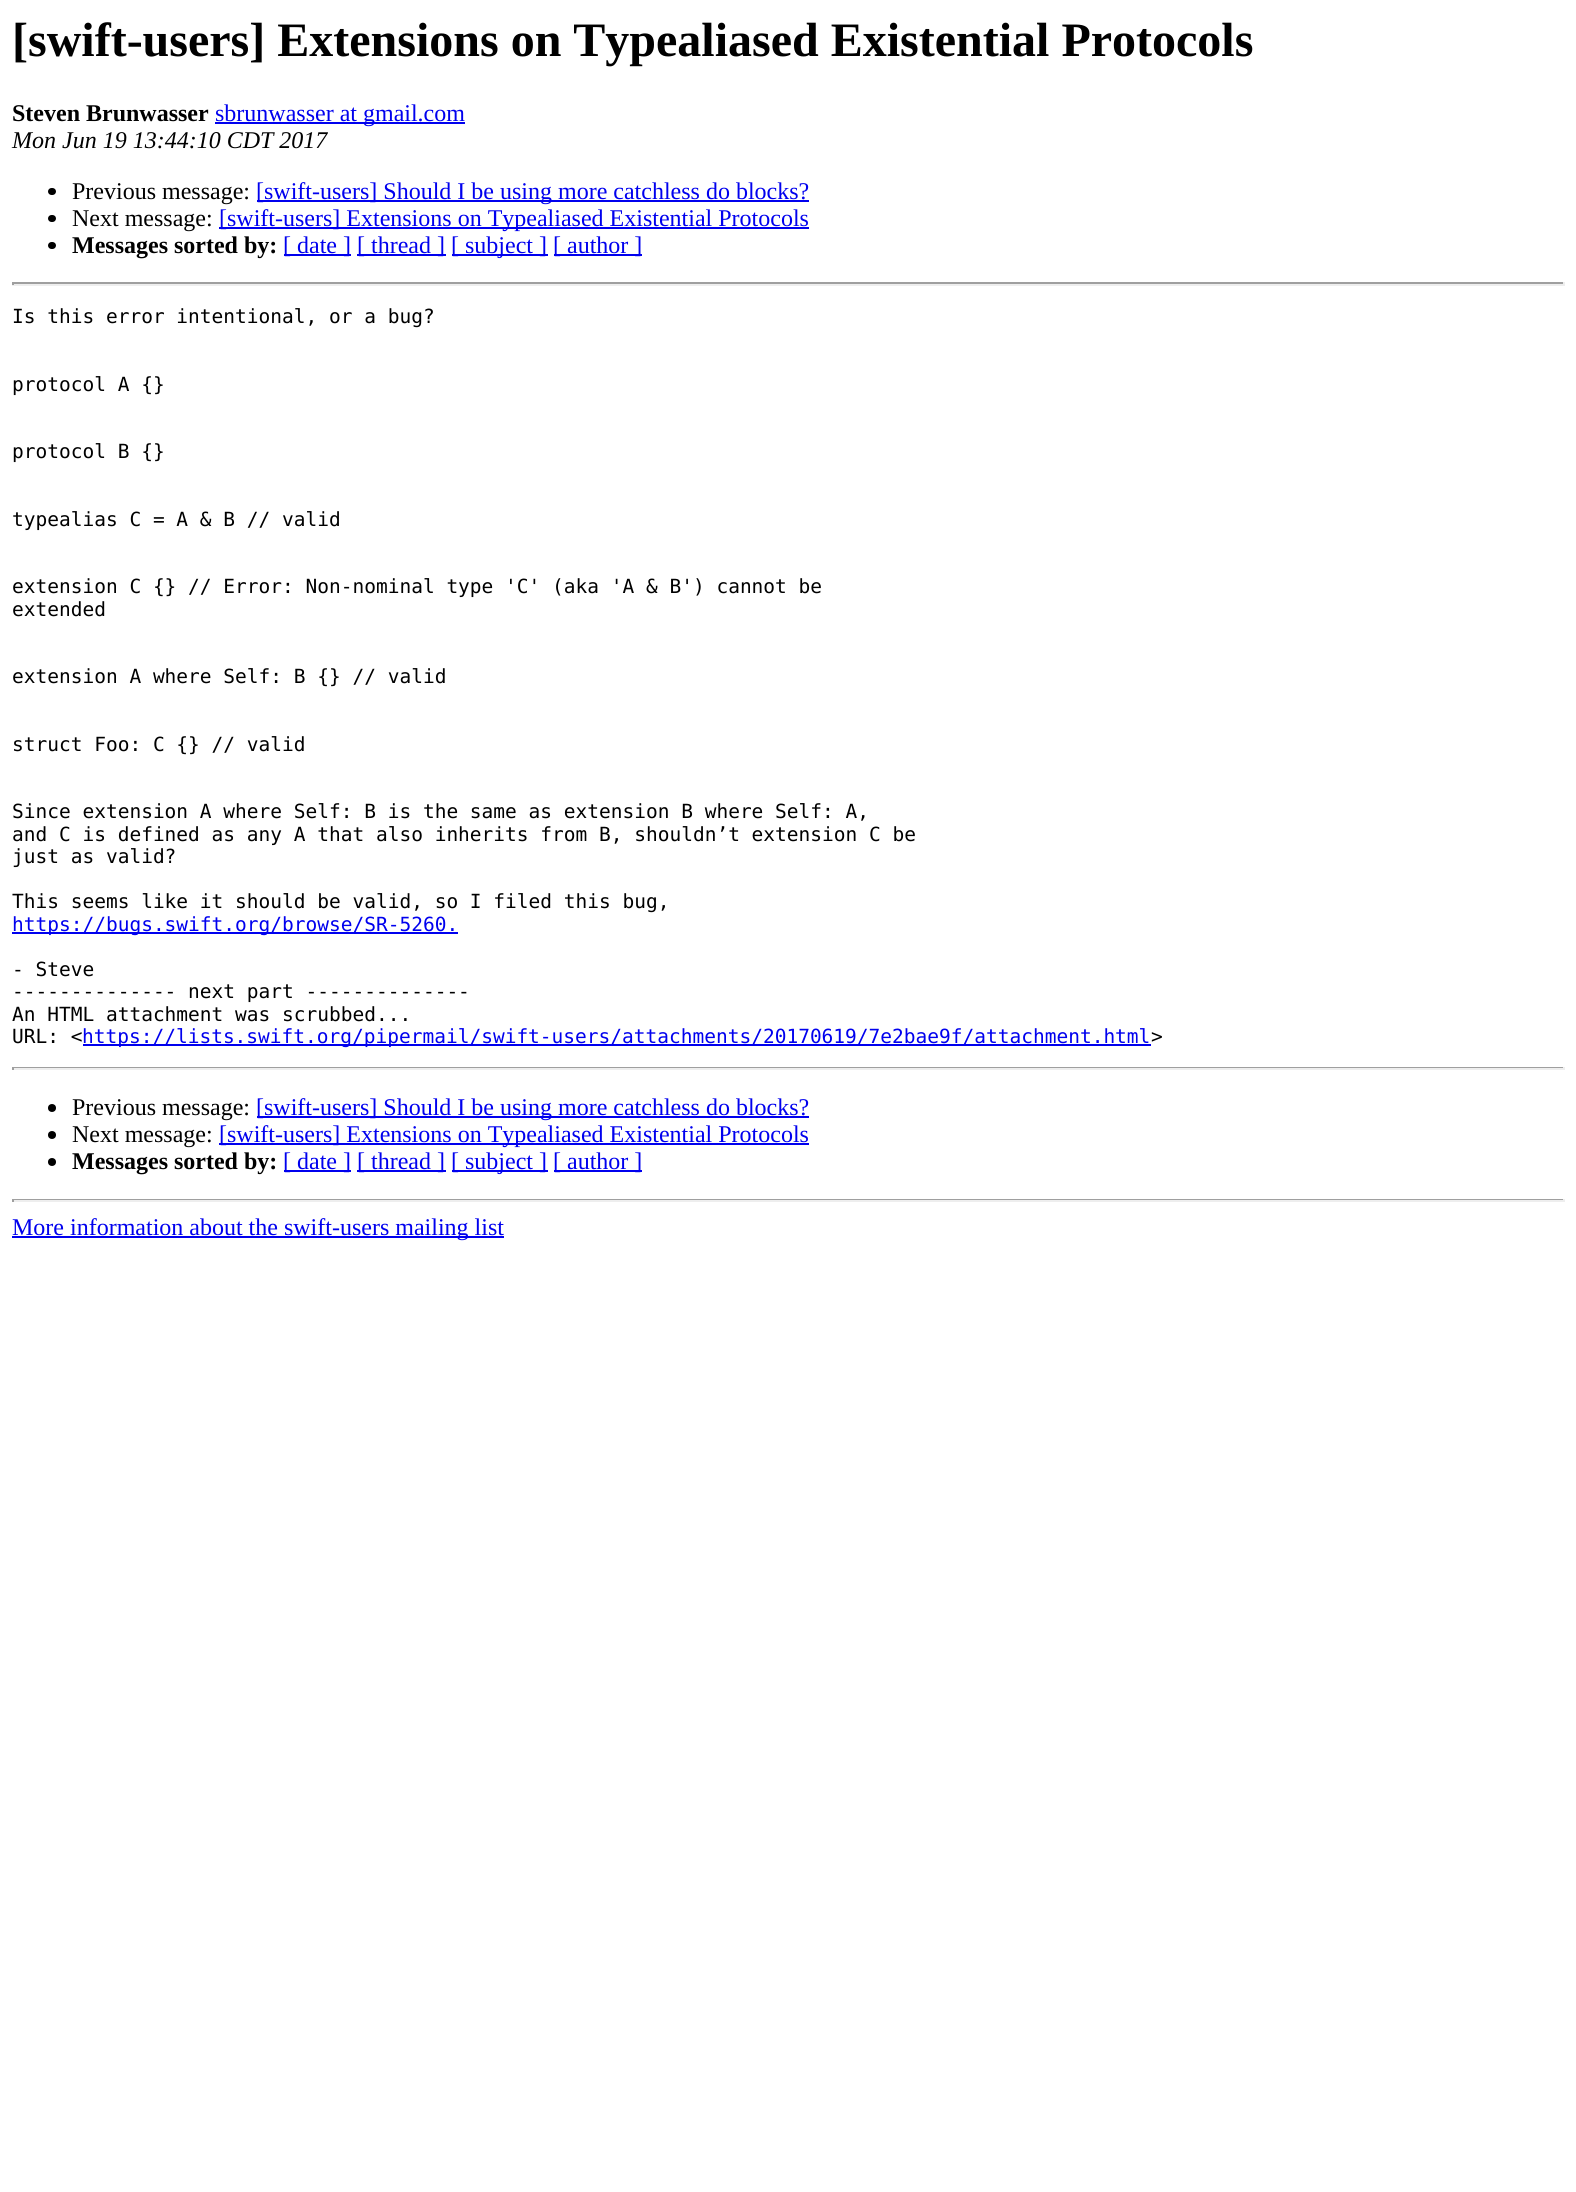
import math
import cairocffi as cairo

surface = cairo.ImageSurface(cairo.FORMAT_RGB24, 1576, 2192)
cr = cairo.Context(surface)
options = cairo.FontOptions()
options.set_hint_metrics(cairo.HINT_METRICS_OFF)
options.set_hint_style(cairo.HINT_STYLE_NONE)
cr.set_font_options(options)
cr.set_miter_limit(4)


def use_color(code):
    cr.set_source_rgb(*(v / 255 for v in bytes.fromhex(code[-6:])))


def round_rect(x, y, w, h, r):
    cr.new_sub_path()
    for i, (u, v) in enumerate([(x + w - r, y + h - r), (x + r, y + h - r), (x + r, y + r), (x + w - r, y + r)]):
        cr.arc(u, v, r, i * math.pi / 2, (i + 1) * math.pi / 2)
    cr.close_path()


use_color("#ffffff")
cr.paint()
cr.select_font_face("Liberation Serif", cairo.FONT_SLANT_NORMAL, cairo.FONT_WEIGHT_BOLD)
cr.set_font_size(48)
use_color("#000000")
cr.move_to(12, 56)
cr.show_text("[swift-users] Extensions on Typealiased Existential Protocols")
cr.set_font_size(24)
cr.move_to(12, 121)
cr.show_text("Steven Brunwasser")
use_color("#0000ee")
cr.rectangle(215, 122, 250, 2)
cr.fill()
cr.select_font_face("Liberation Serif")
cr.move_to(215, 121)
cr.show_text("sbrunwasser at gmail.com")
cr.select_font_face("Liberation Serif", cairo.FONT_SLANT_ITALIC)
use_color("#000000")
cr.move_to(12, 148)
cr.show_text("Mon Jun 19 13:44:10 CDT 2017")
round_rect(48, 188, 8, 7, 3.5)
cr.fill()
cr.select_font_face("Liberation Serif")
cr.move_to(72, 199)
cr.show_text("Previous message:")
use_color("#0000ee")
cr.rectangle(257, 200, 552, 2)
cr.fill()
cr.move_to(256, 199)
cr.show_text("[swift-users] Should I be using more catchless do blocks?")
use_color("#000000")
round_rect(48, 215, 8, 7, 3.5)
cr.fill()
cr.move_to(72, 226)
cr.show_text("Next message:")
use_color("#0000ee")
cr.rectangle(219, 227, 590, 2)
cr.fill()
cr.move_to(219, 226)
cr.show_text("[swift-users] Extensions on Typealiased Existential Protocols")
use_color("#000000")
round_rect(48, 242, 8, 7, 3.5)
cr.fill()
cr.select_font_face("Liberation Serif", cairo.FONT_SLANT_NORMAL, cairo.FONT_WEIGHT_BOLD)
cr.move_to(72, 253)
cr.show_text("Messages sorted by:")
use_color("#0000ee")
cr.rectangle(284, 254, 67, 2)
cr.fill()
cr.select_font_face("Liberation Serif")
cr.move_to(283, 253)
cr.show_text("[ date ]")
cr.rectangle(357, 254, 89, 2)
cr.fill()
cr.move_to(357, 253)
cr.show_text("[ thread ]")
cr.rectangle(452, 254, 96, 2)
cr.fill()
cr.move_to(451, 253)
cr.show_text("[ subject ]")
cr.rectangle(554, 254, 88, 2)
cr.fill()
cr.move_to(553, 253)
cr.show_text("[ author ]")
use_color("#9f9f9f")
cr.rectangle(12, 282, 1553, 2)
cr.fill()
use_color("#eeeeee")
cr.rectangle(1563, 282, 2, 3)
cr.fill()
cr.rectangle(12, 284, 1553, 2)
cr.fill()
use_color("#9f9f9f")
cr.rectangle(12, 282, 2, 3)
cr.fill()
cr.select_font_face("DejaVu Sans Mono")
cr.set_font_size(19.5)
use_color("#000000")
cr.move_to(12, 323)
cr.show_text("Is this error intentional, or a bug?")
cr.move_to(12, 391)
cr.show_text("protocol A {}")
cr.move_to(12, 458)
cr.show_text("protocol B {}")
cr.move_to(12, 526)
cr.show_text("typealias C = A & B // valid")
cr.move_to(12, 593)
cr.show_text("extension C {} // Error: Non-nominal type 'C' (aka 'A & B') cannot be")
cr.move_to(12, 616)
cr.show_text("extended")
cr.move_to(12, 683)
cr.show_text("extension A where Self: B {} // valid")
cr.move_to(12, 751)
cr.show_text("struct Foo: C {} // valid")
cr.move_to(12, 818)
cr.show_text("Since extension A where Self: B is the same as extension B where Self: A,")
cr.move_to(12, 841)
cr.show_text("and C is defined as any A that also inherits from B, shouldn’t extension C be")
cr.move_to(12, 863)
cr.show_text("just as valid?")
cr.move_to(12, 908)
cr.show_text("This seems like it should be valid, so I filed this bug,")
use_color("#0000ee")
cr.rectangle(12, 932, 446, 2)
cr.fill()
cr.move_to(12, 931)
cr.show_text("https://bugs.swift.org/browse/SR-5260.")
use_color("#000000")
cr.move_to(12, 976)
cr.show_text("- Steve")
cr.move_to(12, 998)
cr.show_text("-------------- next part --------------")
cr.move_to(12, 1021)
cr.show_text("An HTML attachment was scrubbed...")
cr.move_to(12, 1043)
cr.show_text("URL: <")
use_color("#0000ee")
cr.rectangle(83, 1044, 1068, 2)
cr.fill()
cr.move_to(82, 1043)
cr.show_text("https://lists.swift.org/pipermail/swift-users/attachments/20170619/7e2bae9f/attachment.html")
use_color("#000000")
cr.move_to(1151, 1043)
cr.show_text(">")
use_color("#9f9f9f")
cr.rectangle(12, 1067, 1553, 1)
cr.fill()
use_color("#eeeeee")
cr.rectangle(1563, 1067, 2, 3)
cr.fill()
cr.rectangle(12, 1068, 1553, 2)
cr.fill()
use_color("#9f9f9f")
cr.rectangle(12, 1067, 2, 3)
cr.fill()
use_color("#000000")
cr.arc(52, 1108, 4, 0, 2 * math.pi)
cr.fill()
cr.select_font_face("Liberation Serif")
cr.set_font_size(24)
cr.move_to(72, 1115)
cr.show_text("Previous message:")
use_color("#0000ee")
cr.rectangle(257, 1116, 552, 2)
cr.fill()
cr.move_to(256, 1115)
cr.show_text("[swift-users] Should I be using more catchless do blocks?")
use_color("#000000")
cr.new_path()
cr.arc(52, 1135, 4, 0, 2 * math.pi)
cr.fill()
cr.move_to(72, 1142)
cr.show_text("Next message:")
use_color("#0000ee")
cr.rectangle(219, 1143, 590, 2)
cr.fill()
cr.move_to(219, 1142)
cr.show_text("[swift-users] Extensions on Typealiased Existential Protocols")
use_color("#000000")
cr.new_path()
cr.arc(52, 1162, 4, 0, 2 * math.pi)
cr.fill()
cr.select_font_face("Liberation Serif", cairo.FONT_SLANT_NORMAL, cairo.FONT_WEIGHT_BOLD)
cr.move_to(72, 1169)
cr.show_text("Messages sorted by:")
use_color("#0000ee")
cr.rectangle(284, 1170, 67, 2)
cr.fill()
cr.select_font_face("Liberation Serif")
cr.move_to(283, 1169)
cr.show_text("[ date ]")
cr.rectangle(357, 1170, 89, 2)
cr.fill()
cr.move_to(357, 1169)
cr.show_text("[ thread ]")
cr.rectangle(452, 1170, 96, 2)
cr.fill()
cr.move_to(451, 1169)
cr.show_text("[ subject ]")
cr.rectangle(554, 1170, 88, 2)
cr.fill()
cr.move_to(553, 1169)
cr.show_text("[ author ]")
use_color("#9f9f9f")
cr.rectangle(12, 1199, 1553, 1)
cr.fill()
use_color("#eeeeee")
cr.rectangle(1563, 1199, 2, 3)
cr.fill()
cr.rectangle(12, 1200, 1553, 2)
cr.fill()
use_color("#9f9f9f")
cr.rectangle(12, 1199, 2, 3)
cr.fill()
use_color("#0000ee")
cr.rectangle(12, 1236, 492, 2)
cr.fill()
cr.move_to(12, 1235)
cr.show_text("More information about the swift-users mailing list")
surface.write_to_png("result.png")
